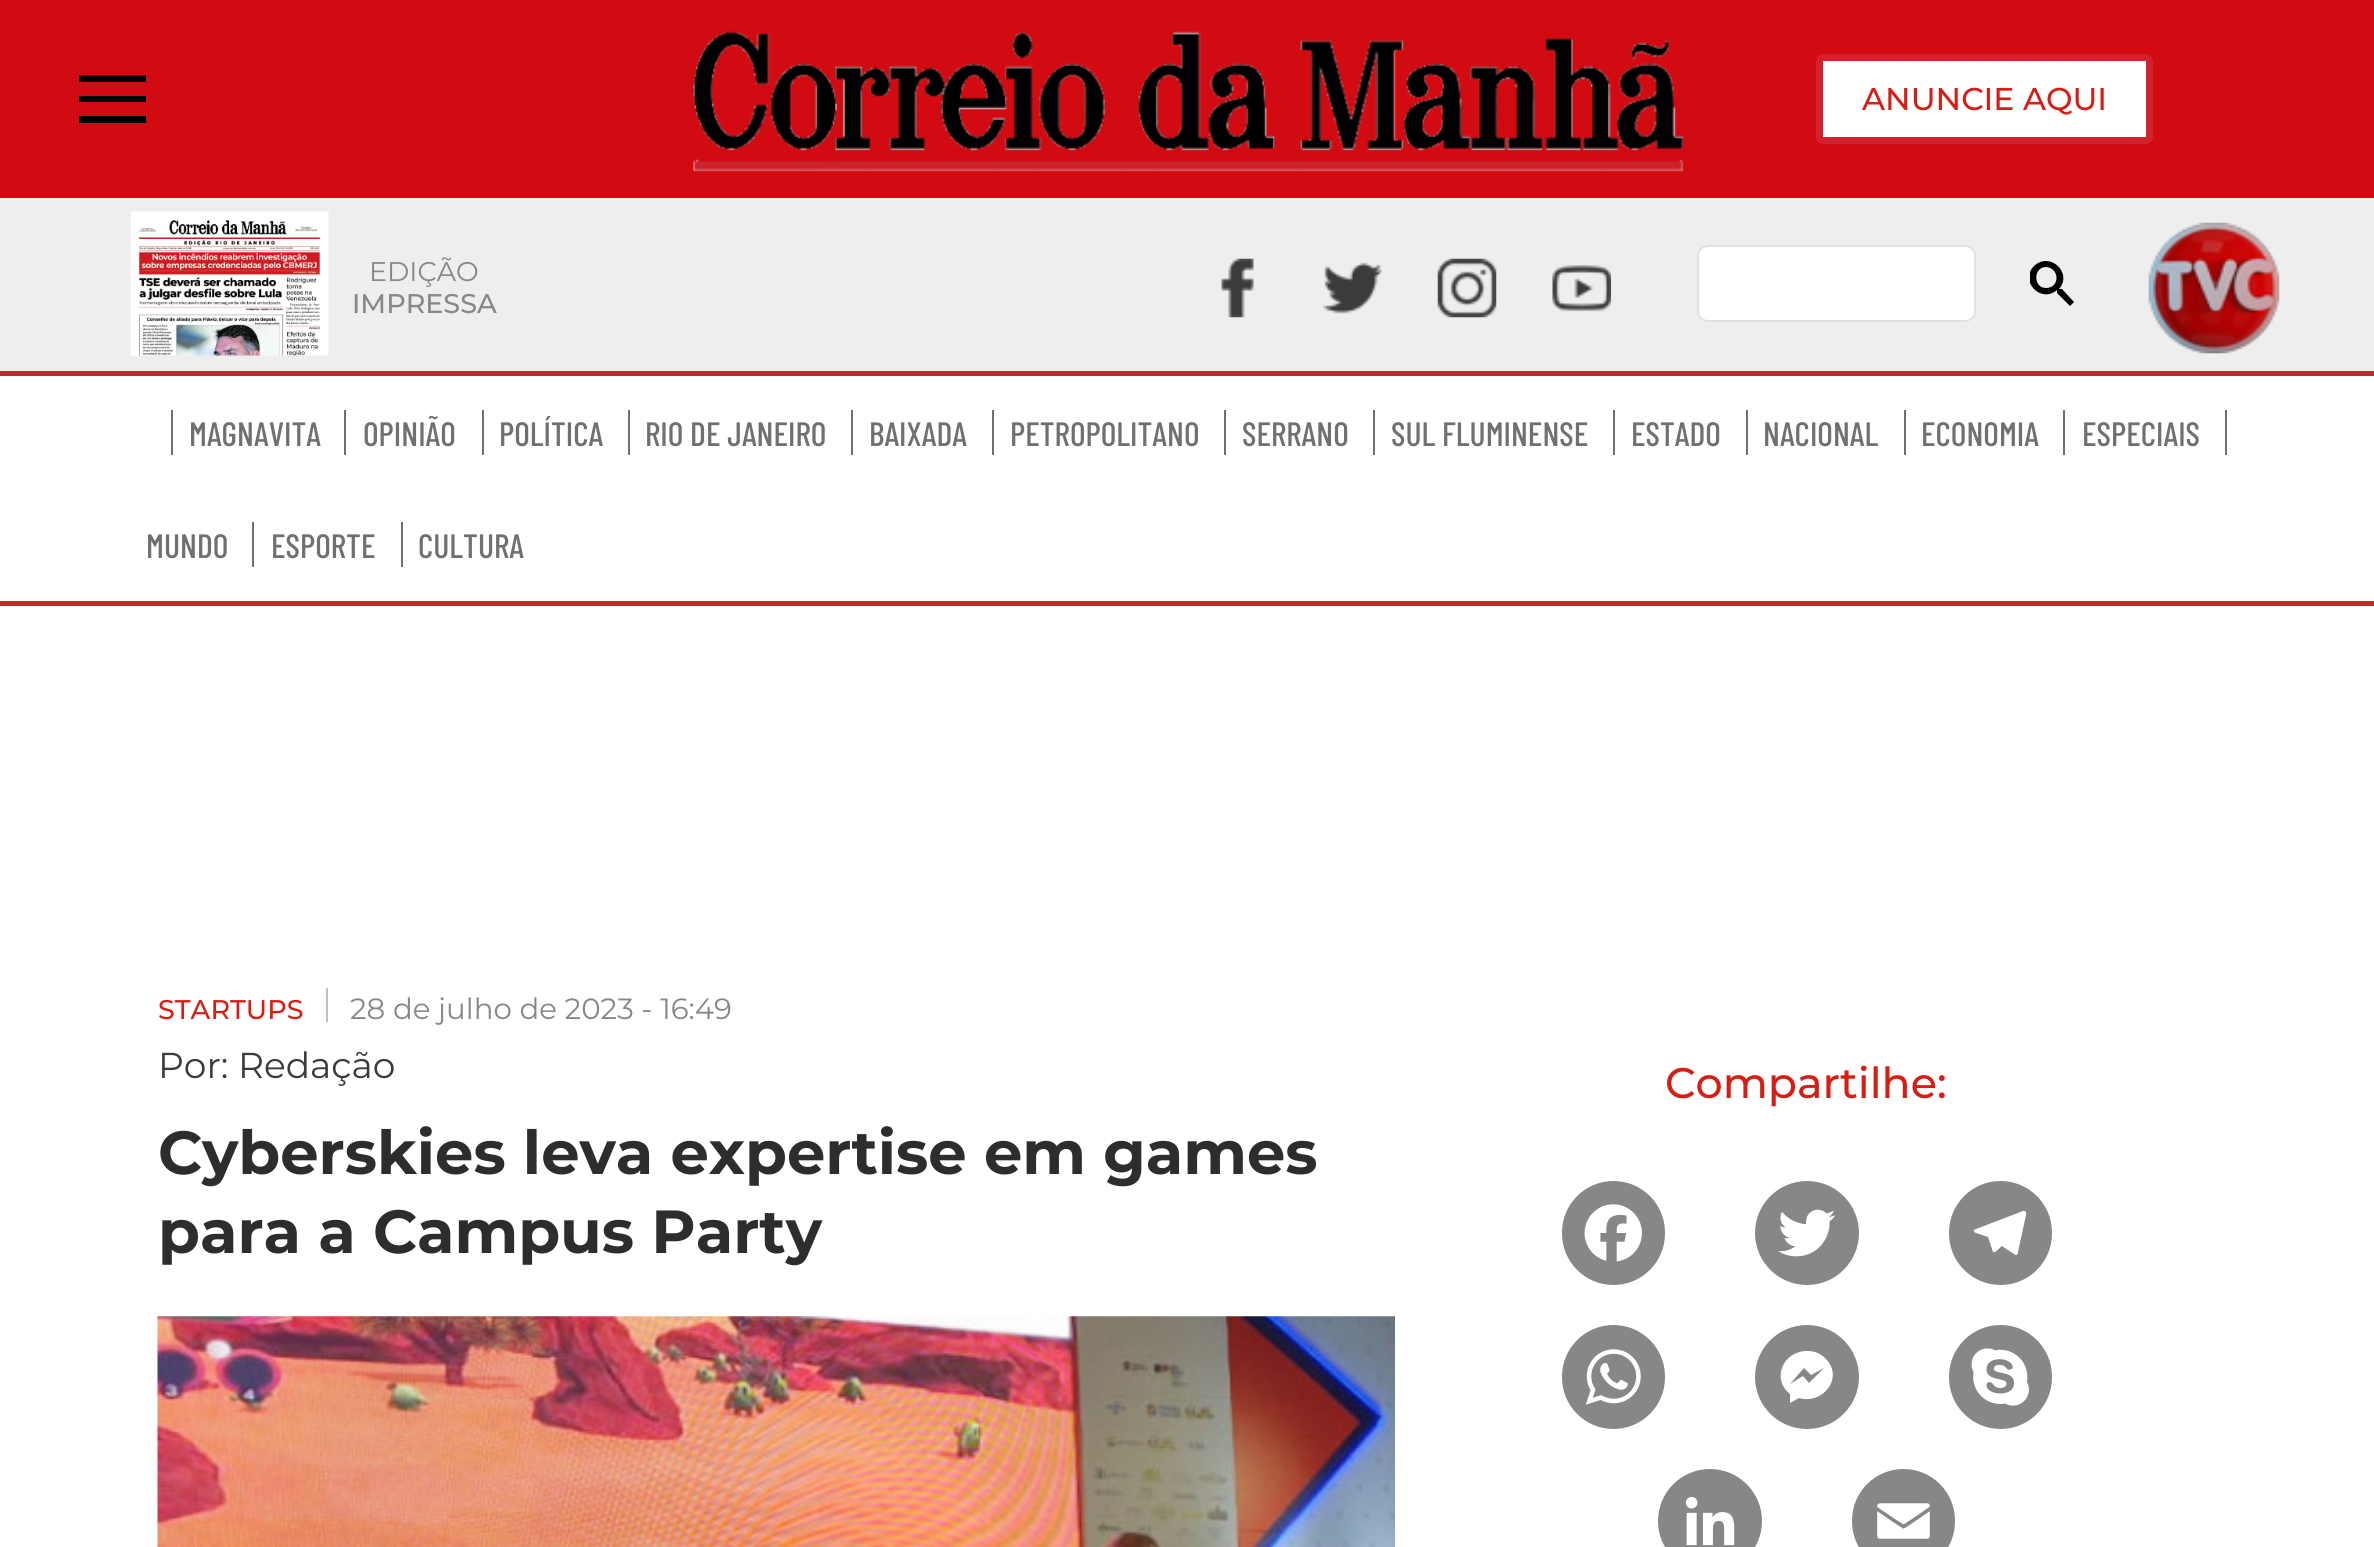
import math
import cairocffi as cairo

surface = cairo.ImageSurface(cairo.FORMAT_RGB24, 2374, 1547)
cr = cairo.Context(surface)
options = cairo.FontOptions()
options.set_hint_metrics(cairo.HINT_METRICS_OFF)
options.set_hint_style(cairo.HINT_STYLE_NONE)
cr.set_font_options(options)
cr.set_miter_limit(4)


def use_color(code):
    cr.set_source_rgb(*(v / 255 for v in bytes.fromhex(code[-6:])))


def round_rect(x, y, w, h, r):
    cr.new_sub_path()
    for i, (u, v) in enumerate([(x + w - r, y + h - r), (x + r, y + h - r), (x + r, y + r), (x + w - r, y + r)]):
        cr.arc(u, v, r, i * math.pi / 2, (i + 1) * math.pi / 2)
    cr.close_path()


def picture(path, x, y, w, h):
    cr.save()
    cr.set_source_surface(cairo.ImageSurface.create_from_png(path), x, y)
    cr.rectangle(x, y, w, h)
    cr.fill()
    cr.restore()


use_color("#ffffff")
cr.paint()
use_color("#d20a11")
cr.rectangle(0, 0, 2374, 198)
cr.fill()
use_color("#000000")
cr.new_path()
cr.move_to(79, 75)
cr.line_to(79, 82)
cr.line_to(146, 82)
cr.line_to(146, 75)
cr.close_path()
cr.move_to(79, 96)
cr.line_to(79, 102)
cr.line_to(146, 102)
cr.line_to(146, 96)
cr.close_path()
cr.move_to(79, 116)
cr.line_to(79, 123)
cr.line_to(146, 123)
cr.line_to(146, 116)
cr.close_path()
cr.fill()
picture("img1.png", 693, 31, 991, 141)
use_color("#ffffff")
round_rect(1819.5, 57.5, 330, 83, 3.5)
cr.fill_preserve()
use_color("#d2222d")
cr.set_line_width(7)
cr.stroke()
cr.select_font_face("Montserrat Medium")
cr.set_font_size(31.5)
use_color("#d71e15")
cr.move_to(1862, 110)
cr.show_text("ANUNCIE AQUI")
use_color("#efeeee")
cr.rectangle(0, 198, 2374, 173)
cr.fill()
picture("img2.png", 130, 211, 199, 145)
cr.select_font_face("Montserrat")
cr.set_font_size(27)
use_color("#878787")
cr.move_to(369, 281)
cr.show_text("EDIÇÃO")
cr.select_font_face("Montserrat Medium")
cr.move_to(352, 313)
cr.show_text("IMPRESSA")
picture("img3.png", 1221, 258, 33, 60)
picture("img4.png", 1323, 262, 59, 52)
picture("img5.png", 1437, 258, 60, 60)
picture("img6.png", 1552, 265, 59, 47)
use_color("#ffffff")
round_rect(1698, 246, 277, 75, 10)
cr.fill_preserve()
use_color("#dfe1e5")
cr.set_line_width(2)
cr.stroke()
cr.save()
cr.rectangle(2030, 261, 45, 45)
cr.clip()
use_color("#000000")
cr.new_path()
cr.move_to(2046, 288)
cr.curve_to(2060, 288, 2060, 268, 2046, 267)
cr.curve_to(2033, 267, 2033, 288, 2046, 288)
cr.close_path()
cr.move_to(2062, 289)
cr.line_to(2074, 302)
cr.line_to(2070, 306)
cr.line_to(2057, 293)
cr.line_to(2057, 290)
cr.curve_to(2041, 304, 2019, 281, 2034, 266)
cr.curve_to(2050, 251, 2073, 273, 2059, 289)
cr.close_path()
cr.fill()
cr.restore()
picture("img7.png", 2148, 222, 132, 132)
use_color("#d1222c")
cr.rectangle(0, 371, 2374, 5)
cr.fill()
cr.rectangle(0, 601, 2374, 5)
cr.fill()
use_color("#707070")
cr.rectangle(171, 410, 2, 45)
cr.fill()
cr.select_font_face("Barlow Condensed Medium")
cr.set_font_size(33.75)
cr.move_to(189, 446)
cr.show_text("MAGNAVITA")
cr.rectangle(344, 410, 2, 45)
cr.fill()
cr.move_to(363, 446)
cr.show_text("OPINIÃO")
cr.rectangle(482, 410, 2, 45)
cr.fill()
cr.move_to(499, 446)
cr.show_text("POLÍTICA")
cr.rectangle(628, 410, 2, 45)
cr.fill()
cr.move_to(645, 446)
cr.show_text("RIO DE JANEIRO")
cr.rectangle(851, 410, 2, 45)
cr.fill()
cr.move_to(869, 446)
cr.show_text("BAIXADA")
cr.rectangle(992, 410, 2, 45)
cr.fill()
cr.move_to(1010, 446)
cr.show_text("PETROPOLITANO")
cr.rectangle(1224, 410, 2, 45)
cr.fill()
cr.move_to(1242, 446)
cr.show_text("SERRANO")
cr.rectangle(1373, 410, 2, 45)
cr.fill()
cr.move_to(1391, 446)
cr.show_text("SUL FLUMINENSE")
cr.rectangle(1613, 410, 2, 45)
cr.fill()
cr.move_to(1631, 446)
cr.show_text("ESTADO")
cr.rectangle(1746, 410, 2, 45)
cr.fill()
cr.move_to(1763, 446)
cr.show_text("NACIONAL")
cr.rectangle(1904, 410, 2, 45)
cr.fill()
cr.move_to(1921, 446)
cr.show_text("ECONOMIA")
cr.rectangle(2063, 410, 2, 45)
cr.fill()
cr.move_to(2082, 446)
cr.show_text("ESPECIAIS")
cr.rectangle(2225, 410, 2, 45)
cr.fill()
cr.move_to(146, 558)
cr.show_text("MUNDO")
cr.rectangle(252, 522, 2, 45)
cr.fill()
cr.move_to(271, 558)
cr.show_text("ESPORTE")
cr.rectangle(401, 522, 2, 45)
cr.fill()
cr.move_to(418, 558)
cr.show_text("CULTURA")
use_color("#c0c0c0")
cr.rectangle(326, 988, 2, 34)
cr.fill()
cr.select_font_face("Montserrat Medium")
cr.set_font_size(27)
use_color("#d71e15")
cr.move_to(158, 1019)
cr.show_text("STARTUPS")
cr.select_font_face("Montserrat")
cr.set_font_size(29.25)
use_color("#878787")
cr.move_to(350, 1019)
cr.show_text("28 de julho de 2023 - 16:49")
cr.set_font_size(36)
use_color("#3b3b3b")
cr.move_to(158, 1078)
cr.show_text("Por: Redação")
cr.select_font_face("Montserrat", cairo.FONT_SLANT_NORMAL, cairo.FONT_WEIGHT_BOLD)
cr.set_font_size(60.75)
use_color("#2e2d2c")
cr.move_to(158, 1174)
cr.show_text("Cyberskies leva expertise em games")
cr.move_to(158, 1253)
cr.show_text("para a Campus Party")
picture("img8.png", 157, 1316, 1238, 231)
cr.select_font_face("Montserrat Medium")
cr.set_font_size(42.75)
use_color("#d71e15")
cr.move_to(1665, 1098)
cr.show_text("Compartilhe:")
use_color("#878787")
round_rect(1562, 1181, 103, 104, 51.5)
cr.fill()
picture("img9.png", 1584, 1204, 58, 58)
cr.arc(1807, 1233, 52, 0, 2 * math.pi)
cr.fill()
picture("img10.png", 1778, 1209, 58, 48)
round_rect(1949, 1181, 103, 104, 51.5)
cr.fill()
use_color("#ffffff")
cr.new_path()
cr.move_to(2023, 1211)
cr.line_to(1976, 1229)
cr.curve_to(1973, 1230, 1973, 1232, 1976, 1233)
cr.line_to(1988, 1237)
cr.line_to(1993, 1252)
cr.curve_to(1995, 1254, 2001, 1246, 2002, 1246)
cr.line_to(2014, 1254)
cr.curve_to(2016, 1256, 2018, 1255, 2018, 1252)
cr.line_to(2026, 1215)
cr.curve_to(2027, 1212, 2025, 1210, 2023, 1211)
cr.close_path()
cr.fill()
use_color("#878787")
round_rect(1562, 1325, 103, 104, 51.5)
cr.fill()
picture("img11.png", 1585, 1349, 56, 56)
cr.arc(1807, 1377, 52, 0, 2 * math.pi)
cr.fill()
use_color("#ffffff")
cr.new_path()
cr.move_to(1807, 1351)
cr.curve_to(1783, 1351, 1771, 1379, 1790, 1394)
cr.line_to(1790, 1403)
cr.line_to(1799, 1398)
cr.curve_to(1823, 1405, 1845, 1377, 1825, 1358)
cr.curve_to(1820, 1353, 1814, 1351, 1807, 1351)
cr.move_to(1809, 1383)
cr.line_to(1803, 1376)
cr.line_to(1790, 1384)
cr.line_to(1804, 1368)
cr.line_to(1811, 1375)
cr.line_to(1824, 1368)
cr.close_path()
cr.fill()
use_color("#878787")
round_rect(1949, 1325, 103, 104, 51.5)
cr.fill()
picture("img12.png", 1971, 1348, 58, 58)
cr.arc(1710, 1521, 52, 0, 2 * math.pi)
cr.fill()
picture("img13.png", 1685, 1496, 50, 50)
round_rect(1852, 1469, 103, 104, 51.5)
cr.fill()
picture("img14.png", 1877, 1503, 53, 36)
surface.write_to_png("result.png")
